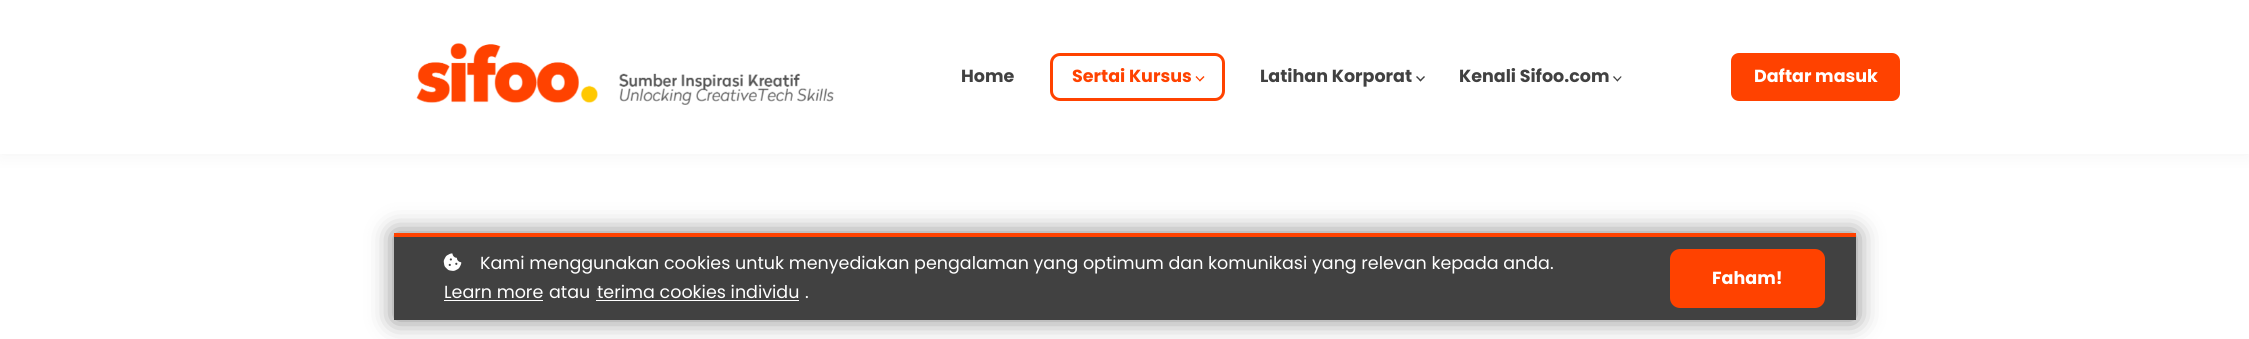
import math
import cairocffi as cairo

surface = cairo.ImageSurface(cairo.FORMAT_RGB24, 2249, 339)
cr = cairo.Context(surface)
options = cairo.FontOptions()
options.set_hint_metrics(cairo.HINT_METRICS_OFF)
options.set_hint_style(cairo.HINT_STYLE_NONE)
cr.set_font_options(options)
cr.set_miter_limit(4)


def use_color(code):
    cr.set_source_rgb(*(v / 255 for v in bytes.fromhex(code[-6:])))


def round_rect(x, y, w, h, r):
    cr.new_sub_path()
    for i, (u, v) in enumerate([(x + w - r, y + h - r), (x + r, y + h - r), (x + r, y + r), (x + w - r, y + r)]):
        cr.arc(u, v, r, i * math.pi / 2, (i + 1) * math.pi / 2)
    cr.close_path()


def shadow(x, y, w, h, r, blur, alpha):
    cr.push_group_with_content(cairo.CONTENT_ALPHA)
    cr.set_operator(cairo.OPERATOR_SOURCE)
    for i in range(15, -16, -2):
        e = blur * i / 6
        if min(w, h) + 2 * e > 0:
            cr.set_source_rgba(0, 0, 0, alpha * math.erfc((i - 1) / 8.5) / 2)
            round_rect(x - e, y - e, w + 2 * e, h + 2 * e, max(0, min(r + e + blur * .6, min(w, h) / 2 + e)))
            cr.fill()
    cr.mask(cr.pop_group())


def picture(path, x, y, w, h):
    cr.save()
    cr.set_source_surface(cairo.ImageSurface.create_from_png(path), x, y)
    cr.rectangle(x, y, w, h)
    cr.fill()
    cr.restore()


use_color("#ffffff")
cr.paint()
use_color("#000000")
shadow(0, 0, 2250, 154, 0, 9.5, 0.05)
use_color("#ffffff")
cr.rectangle(0, 0, 2249, 154)
cr.fill()
picture("img1.png", 416, 43, 418, 62)
cr.select_font_face("Poppins", cairo.FONT_SLANT_NORMAL, cairo.FONT_WEIGHT_BOLD)
cr.set_font_size(17.5)
use_color("#414141")
cr.move_to(961, 82)
cr.show_text("Home")
round_rect(1051.5, 54.5, 172, 45, 8.5)
use_color("#ff4200")
cr.set_line_width(3)
cr.stroke()
cr.move_to(1072, 82)
cr.show_text("Sertai Kursus")
cr.new_path()
cr.move_to(1204.5, 77)
cr.line_to(1200, 81.5)
cr.line_to(1199, 80.5)
cr.line_to(1203.5, 76)
cr.close_path()
cr.fill()
cr.new_path()
cr.move_to(1200.5, 80.5)
cr.line_to(1200, 81.5)
cr.line_to(1195.5, 77)
cr.line_to(1196.5, 76)
cr.close_path()
cr.fill()
use_color("#414141")
cr.move_to(1260, 82)
cr.show_text("Latihan Korporat")
cr.new_path()
cr.move_to(1425, 77)
cr.line_to(1420.5, 81.5)
cr.line_to(1419.5, 80.5)
cr.line_to(1424, 76)
cr.close_path()
cr.fill()
cr.new_path()
cr.move_to(1421.5, 80.5)
cr.line_to(1420.5, 81.5)
cr.line_to(1416, 77)
cr.line_to(1417, 76)
cr.close_path()
cr.fill()
cr.move_to(1459, 82)
cr.show_text("Kenali Sifoo.com")
cr.new_path()
cr.move_to(1621.5, 77)
cr.line_to(1617.5, 81.5)
cr.line_to(1616.5, 80.5)
cr.line_to(1621, 76)
cr.close_path()
cr.fill()
cr.new_path()
cr.move_to(1618, 80.5)
cr.line_to(1617.5, 81.5)
cr.line_to(1613, 77)
cr.line_to(1614, 76)
cr.close_path()
cr.fill()
use_color("#ff4200")
round_rect(1731, 53, 169, 48, 8)
cr.fill()
use_color("#ffffff")
cr.move_to(1754, 82)
cr.show_text("Daftar masuk")
use_color("#000000")
shadow(394, 233, 1462, 87, 0, 12.5, 0.5)
use_color("#414141")
cr.rectangle(394, 237, 1462, 83)
cr.fill()
use_color("#ff4200")
cr.rectangle(394, 233, 1462, 4)
cr.fill()
picture("img2.png", 443, 253, 19, 18)
cr.select_font_face("Poppins")
use_color("#ffffff")
cr.move_to(480, 269)
cr.show_text("Kami menggunakan cookies untuk menyediakan pengalaman yang optimum dan komunikasi yang relevan kepada anda.")
cr.move_to(444, 298)
cr.show_text("Learn more")
cr.rectangle(444, 300, 99, 1)
cr.fill()
cr.move_to(549, 298)
cr.show_text("atau")
cr.move_to(597, 298)
cr.show_text("terima cookies individu")
cr.rectangle(596, 300, 203, 1)
cr.fill()
cr.move_to(805, 298)
cr.show_text(".")
use_color("#ff4200")
round_rect(1670, 249, 155, 59, 10)
cr.fill()
cr.select_font_face("Poppins", cairo.FONT_SLANT_NORMAL, cairo.FONT_WEIGHT_BOLD)
use_color("#ffffff")
cr.move_to(1712, 284)
cr.show_text("Faham!")
surface.write_to_png("result.png")
